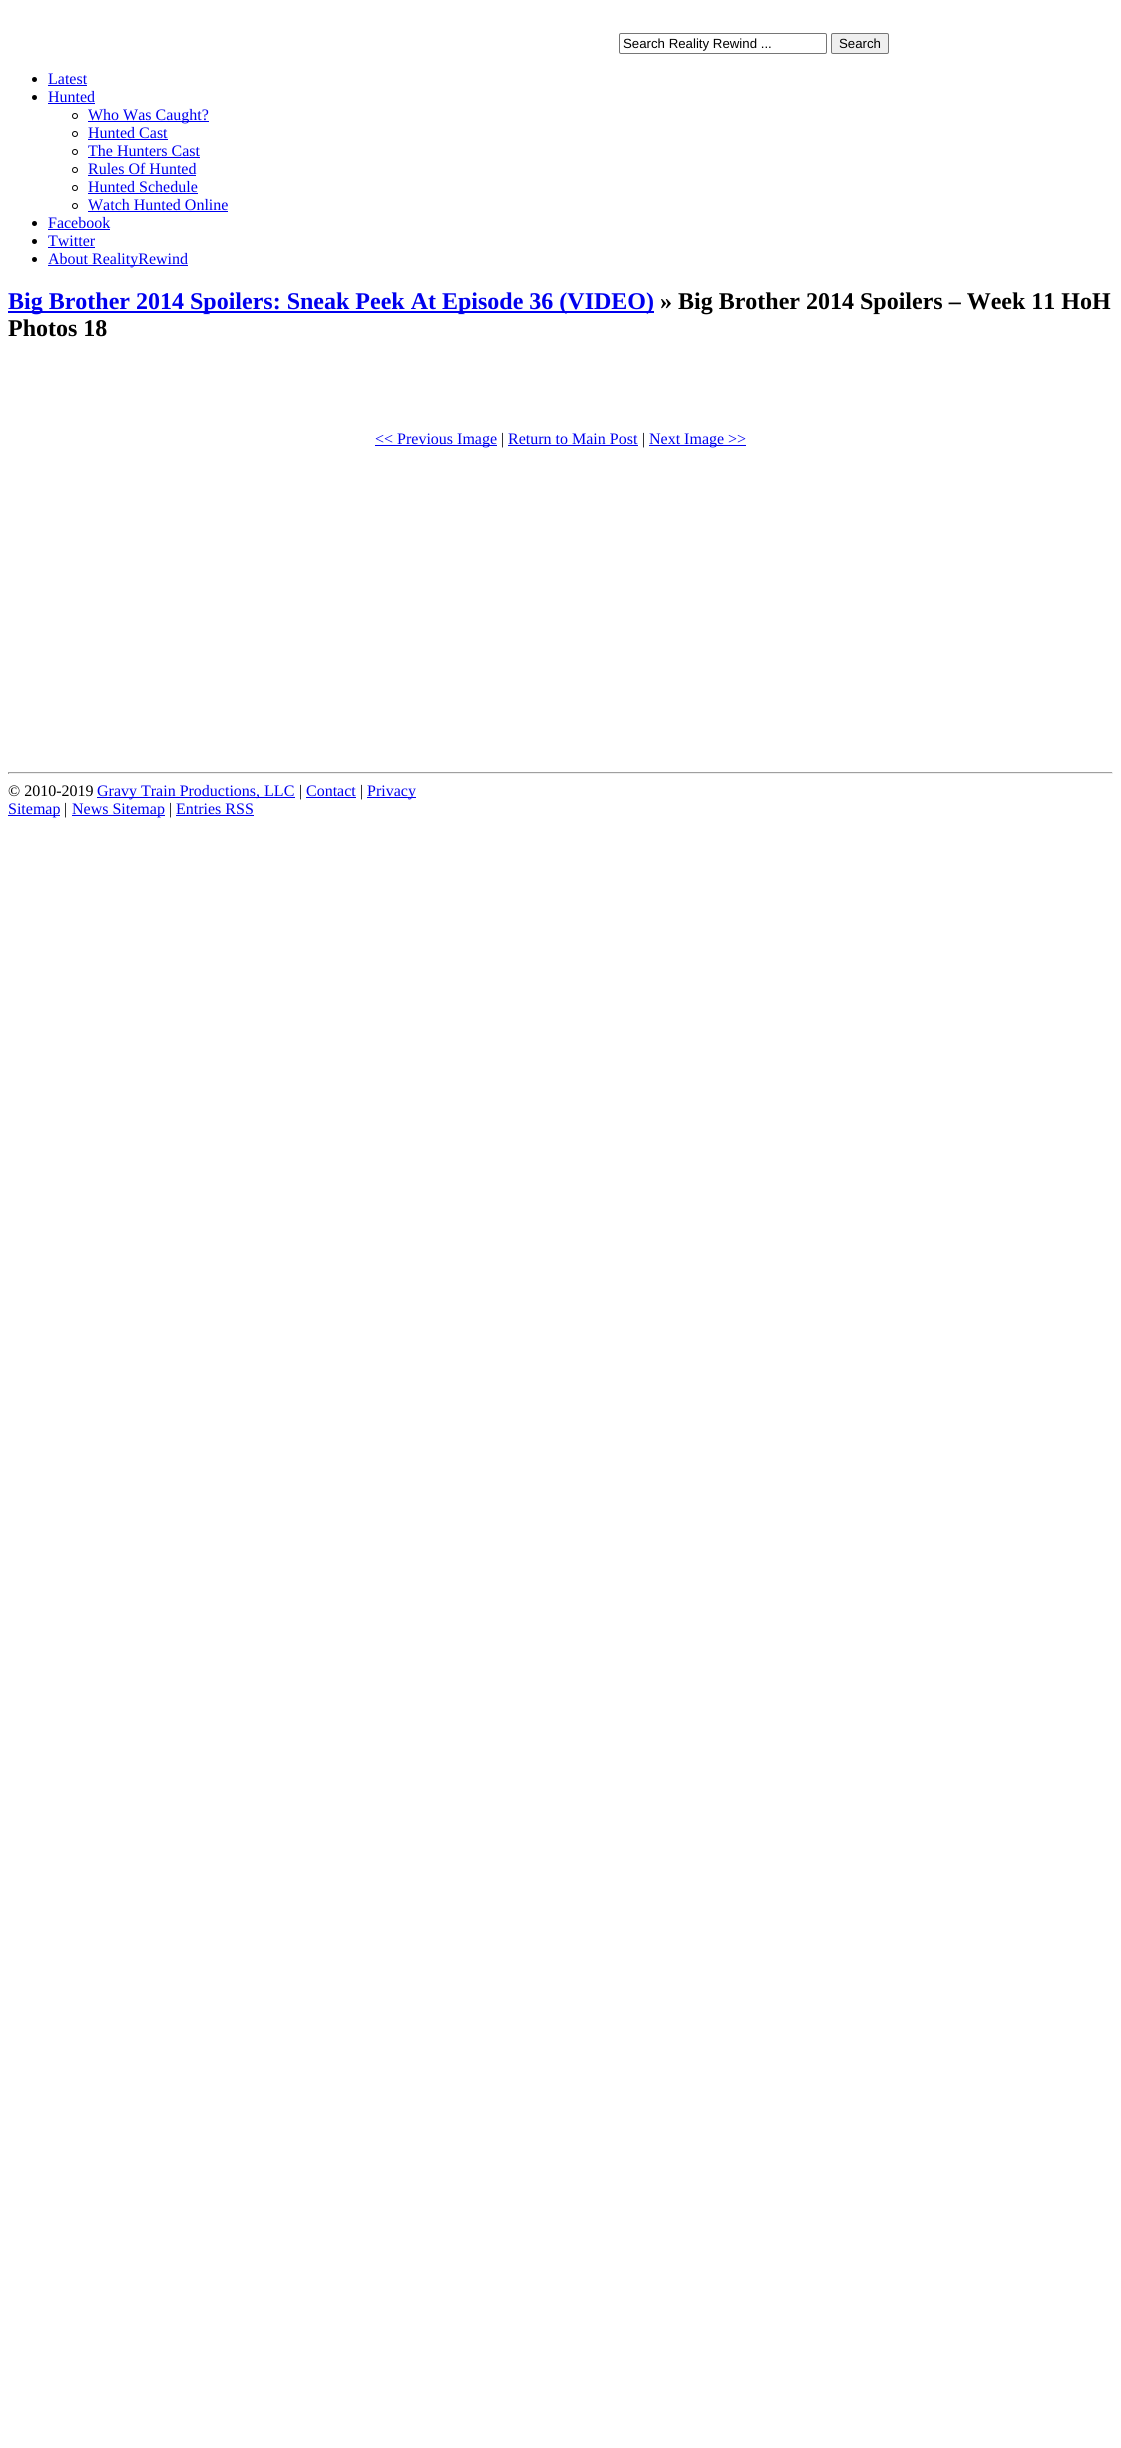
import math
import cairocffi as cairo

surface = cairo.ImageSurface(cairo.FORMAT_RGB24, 1121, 2448)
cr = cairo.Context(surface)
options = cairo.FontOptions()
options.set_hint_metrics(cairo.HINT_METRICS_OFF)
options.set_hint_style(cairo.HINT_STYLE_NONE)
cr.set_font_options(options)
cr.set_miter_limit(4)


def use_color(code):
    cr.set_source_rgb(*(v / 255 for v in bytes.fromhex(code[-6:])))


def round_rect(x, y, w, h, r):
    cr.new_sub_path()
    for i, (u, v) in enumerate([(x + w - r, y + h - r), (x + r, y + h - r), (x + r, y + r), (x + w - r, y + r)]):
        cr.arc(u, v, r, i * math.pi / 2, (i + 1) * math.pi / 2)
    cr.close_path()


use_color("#ffffff")
cr.paint()
round_rect(619.5, 33.5, 207, 20, 1.5)
use_color("#767676")
cr.set_line_width(1)
cr.stroke()
cr.select_font_face("Liberation Sans")
cr.set_font_size(13.25)
use_color("#000000")
cr.move_to(623, 48)
cr.show_text("Search Reality Rewind ...")
use_color("#efefef")
round_rect(831.5, 33.5, 57, 20, 1.5)
cr.fill_preserve()
use_color("#767676")
cr.stroke()
use_color("#000000")
cr.move_to(839, 48)
cr.show_text("Search")
cr.new_path()
cr.arc(34.5, 79.5, 2.5, 0, 2 * math.pi)
cr.fill()
cr.select_font_face("Liberation Serif")
cr.set_font_size(16)
use_color("#0000ee")
cr.move_to(48, 84)
cr.show_text("Latest")
cr.rectangle(48, 85, 39, 1)
cr.fill()
use_color("#000000")
cr.arc(34.5, 97.5, 2.5, 0, 2 * math.pi)
cr.fill()
use_color("#0000ee")
cr.move_to(48, 102)
cr.show_text("Hunted")
cr.rectangle(48, 103, 47, 1)
cr.fill()
cr.arc(75, 116, 2.5, 0, 2 * math.pi)
use_color("#000000")
cr.stroke()
use_color("#0000ee")
cr.rectangle(88, 121, 121, 1)
cr.fill()
cr.move_to(88, 120)
cr.show_text("Who Was Caught?")
cr.new_path()
cr.arc(75, 134, 2.5, 0, 2 * math.pi)
use_color("#000000")
cr.stroke()
use_color("#0000ee")
cr.move_to(88, 138)
cr.show_text("Hunted Cast")
cr.rectangle(88, 139, 80, 1)
cr.fill()
cr.arc(75, 152, 2.5, 0, 2 * math.pi)
use_color("#000000")
cr.stroke()
use_color("#0000ee")
cr.move_to(88, 156)
cr.show_text("The Hunters Cast")
cr.rectangle(88, 157, 112, 1)
cr.fill()
cr.arc(75, 170, 2.5, 0, 2 * math.pi)
use_color("#000000")
cr.stroke()
use_color("#0000ee")
cr.move_to(88, 174)
cr.show_text("Rules Of Hunted")
cr.rectangle(88, 175, 108, 1)
cr.fill()
cr.arc(75, 188, 2.5, 0, 2 * math.pi)
use_color("#000000")
cr.stroke()
use_color("#0000ee")
cr.move_to(88, 192)
cr.show_text("Hunted Schedule")
cr.rectangle(88, 193, 110, 1)
cr.fill()
cr.arc(75, 206, 2.5, 0, 2 * math.pi)
use_color("#000000")
cr.stroke()
use_color("#0000ee")
cr.move_to(88, 210)
cr.show_text("Watch Hunted Online")
cr.rectangle(88, 211, 140, 1)
cr.fill()
use_color("#000000")
cr.arc(34.5, 223.5, 2.5, 0, 2 * math.pi)
cr.fill()
use_color("#0000ee")
cr.move_to(48, 228)
cr.show_text("Facebook")
cr.rectangle(48, 229, 62, 1)
cr.fill()
use_color("#000000")
cr.arc(34.5, 241.5, 2.5, 0, 2 * math.pi)
cr.fill()
use_color("#0000ee")
cr.move_to(48, 246)
cr.show_text("Twitter")
cr.rectangle(48, 247, 47, 1)
cr.fill()
use_color("#000000")
cr.arc(34.5, 259.5, 2.5, 0, 2 * math.pi)
cr.fill()
use_color("#0000ee")
cr.rectangle(48, 265, 140, 1)
cr.fill()
cr.move_to(48, 264)
cr.show_text("About RealityRewind")
cr.rectangle(8, 311, 646, 2)
cr.fill()
cr.select_font_face("Liberation Serif", cairo.FONT_SLANT_NORMAL, cairo.FONT_WEIGHT_BOLD)
cr.set_font_size(24)
cr.move_to(8, 309)
cr.show_text("Big Brother 2014 Spoilers: Sneak Peek At Episode 36 (VIDEO)")
use_color("#000000")
cr.move_to(660, 309)
cr.show_text("» Big Brother 2014 Spoilers – Week 11 HoH")
cr.move_to(8, 336)
cr.show_text("Photos 18")
use_color("#0000ee")
cr.rectangle(375, 445, 122, 1)
cr.fill()
cr.select_font_face("Liberation Serif")
cr.set_font_size(16)
cr.move_to(375, 444)
cr.show_text("<< Previous Image")
use_color("#000000")
cr.move_to(501, 444)
cr.show_text("|")
use_color("#0000ee")
cr.move_to(508, 444)
cr.show_text("Return to Main Post")
cr.rectangle(508, 445, 130, 1)
cr.fill()
use_color("#000000")
cr.move_to(642, 444)
cr.show_text("|")
use_color("#0000ee")
cr.rectangle(649, 445, 97, 1)
cr.fill()
cr.move_to(649, 444)
cr.show_text("Next Image >>")
use_color("#9f9f9f")
cr.rectangle(8, 772, 1105, 1)
cr.fill()
use_color("#eeeeee")
cr.rectangle(1112, 772, 1, 2)
cr.fill()
cr.rectangle(8, 773, 1105, 1)
cr.fill()
use_color("#9f9f9f")
cr.rectangle(8, 772, 1, 2)
cr.fill()
use_color("#000000")
cr.move_to(8, 796)
cr.show_text("© 2010-2019")
use_color("#0000ee")
cr.rectangle(97, 797, 198, 1)
cr.fill()
cr.move_to(97, 796)
cr.show_text("Gravy Train Productions, LLC")
use_color("#000000")
cr.move_to(299, 796)
cr.show_text("|")
use_color("#0000ee")
cr.move_to(306, 796)
cr.show_text("Contact")
cr.rectangle(306, 797, 50, 1)
cr.fill()
use_color("#000000")
cr.move_to(360, 796)
cr.show_text("|")
use_color("#0000ee")
cr.rectangle(367, 797, 49, 1)
cr.fill()
cr.move_to(367, 796)
cr.show_text("Privacy")
cr.rectangle(8, 815, 52, 1)
cr.fill()
cr.move_to(8, 814)
cr.show_text("Sitemap")
use_color("#000000")
cr.move_to(64, 814)
cr.show_text("|")
use_color("#0000ee")
cr.rectangle(72, 815, 93, 1)
cr.fill()
cr.move_to(72, 814)
cr.show_text("News Sitemap")
use_color("#000000")
cr.move_to(169, 814)
cr.show_text("|")
use_color("#0000ee")
cr.move_to(176, 814)
cr.show_text("Entries RSS")
cr.rectangle(176, 815, 78, 1)
cr.fill()
surface.write_to_png("result.png")
